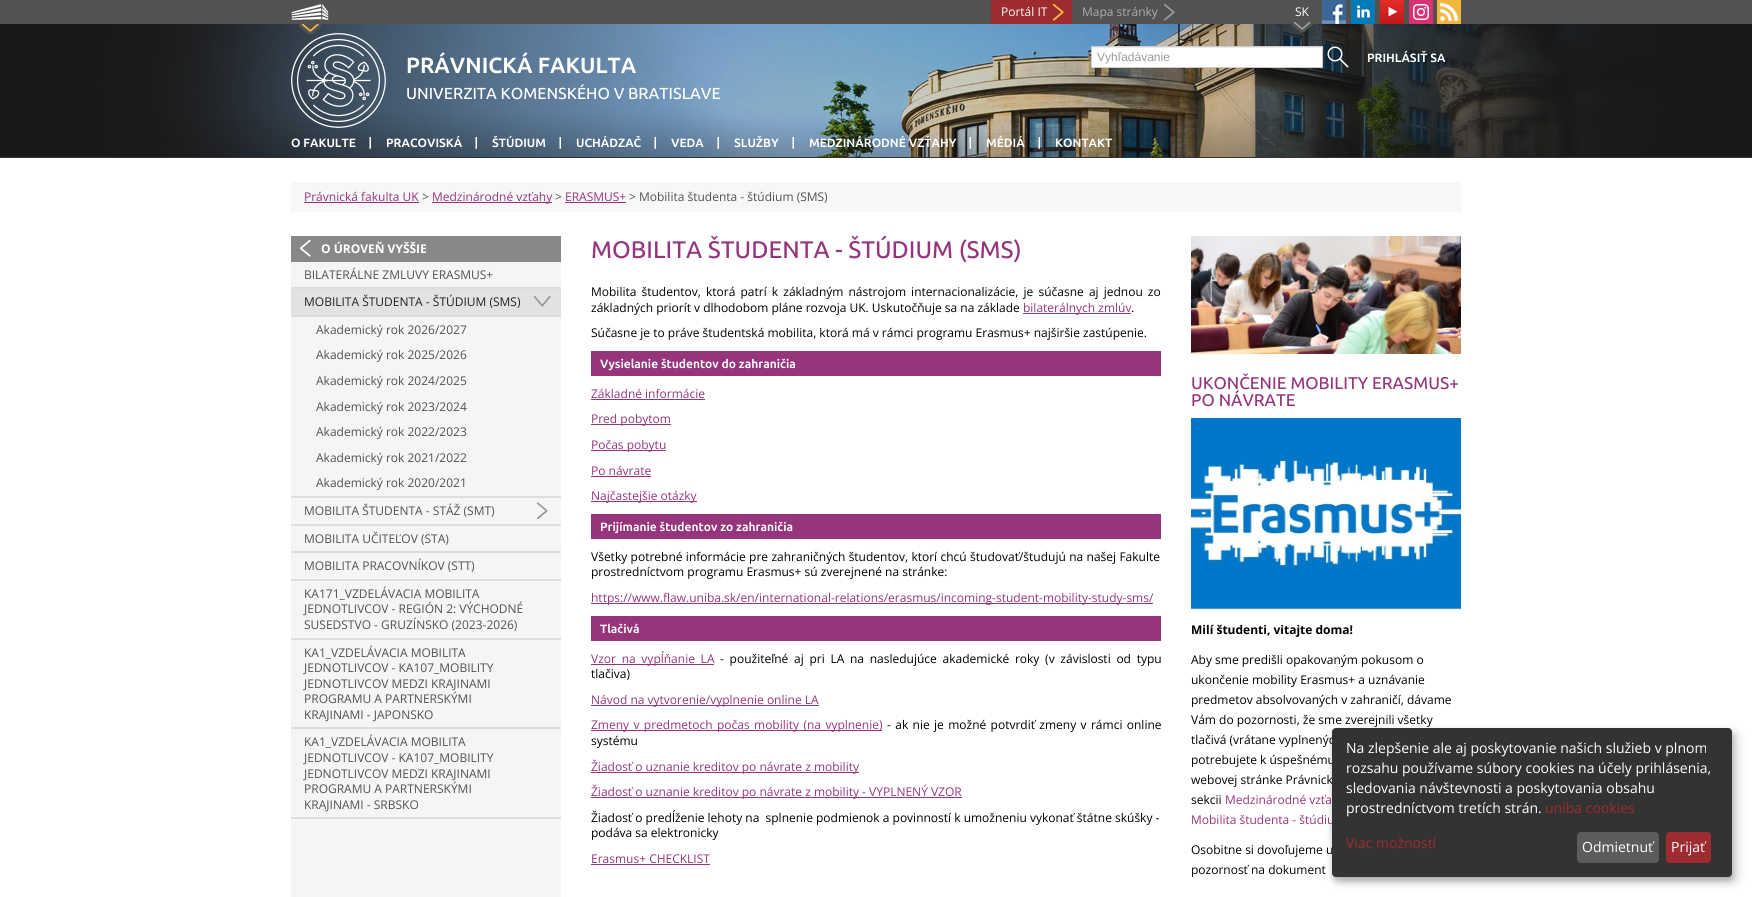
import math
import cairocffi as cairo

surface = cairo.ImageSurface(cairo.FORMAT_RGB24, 1752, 897)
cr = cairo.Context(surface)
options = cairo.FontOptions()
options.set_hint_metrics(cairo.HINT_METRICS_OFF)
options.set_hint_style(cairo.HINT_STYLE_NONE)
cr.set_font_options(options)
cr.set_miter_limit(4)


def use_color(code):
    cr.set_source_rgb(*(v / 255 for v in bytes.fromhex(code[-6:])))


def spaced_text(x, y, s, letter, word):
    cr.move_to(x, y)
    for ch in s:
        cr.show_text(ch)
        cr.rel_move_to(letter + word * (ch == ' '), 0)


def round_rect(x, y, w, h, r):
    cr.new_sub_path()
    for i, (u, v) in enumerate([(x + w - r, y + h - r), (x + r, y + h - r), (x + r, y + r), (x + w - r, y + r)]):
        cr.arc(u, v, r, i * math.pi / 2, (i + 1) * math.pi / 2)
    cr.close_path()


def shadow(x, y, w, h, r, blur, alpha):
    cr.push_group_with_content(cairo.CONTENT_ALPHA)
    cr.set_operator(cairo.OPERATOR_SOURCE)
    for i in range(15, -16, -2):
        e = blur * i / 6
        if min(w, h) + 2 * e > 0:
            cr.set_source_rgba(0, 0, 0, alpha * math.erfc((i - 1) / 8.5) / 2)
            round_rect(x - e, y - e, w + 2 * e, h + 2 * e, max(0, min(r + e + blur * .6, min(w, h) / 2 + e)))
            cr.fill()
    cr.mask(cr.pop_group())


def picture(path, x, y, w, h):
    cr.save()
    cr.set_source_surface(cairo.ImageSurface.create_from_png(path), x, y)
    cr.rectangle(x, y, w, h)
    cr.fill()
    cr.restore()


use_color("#ffffff")
cr.paint()
use_color("#535250")
cr.rectangle(0, 0, 1752, 24)
cr.fill()
picture("img10.png", 0, 24, 1752, 133)
picture("img19.png", 291, 33, 95, 95)
picture("img1.png", 291, 4, 38, 31)
use_color("#9e2b2f")
cr.rectangle(991, 0, 81, 24)
cr.fill()
picture("img2.png", 1053, 4, 11, 17)
cr.select_font_face("Open Sans")
cr.set_font_size(12)
use_color("#ffffff")
cr.move_to(1001, 16)
cr.show_text("Portál IT")
picture("img3.png", 1164, 4, 11, 17)
use_color("#adadad")
cr.move_to(1082, 16)
cr.show_text("Mapa stránky")
picture("img4.png", 1291, 22, 22, 11)
use_color("#ffffff")
cr.move_to(1295, 16)
cr.show_text("SK")
picture("img5.png", 1322, 0, 24, 24)
picture("img6.png", 1351, 0, 24, 24)
picture("img7.png", 1380, 0, 24, 24)
picture("img8.png", 1409, 0, 24, 24)
picture("img9.png", 1437, 0, 24, 24)
use_color("#323232")
cr.rectangle(0, 157, 1752, 1)
cr.fill()
cr.select_font_face("Ubuntu", cairo.FONT_SLANT_NORMAL, cairo.FONT_WEIGHT_BOLD)
use_color("#ffffff")
cr.move_to(1367, 62)
cr.show_text("PRIHLÁSIŤ SA")
cr.move_to(291, 147)
cr.show_text("O FAKULTE")
picture("img11.png", 369, 137, 2, 12)
cr.move_to(386, 147)
cr.show_text("PRACOVISKÁ")
picture("img12.png", 475, 137, 2, 12)
cr.move_to(492, 147)
cr.show_text("ŠTÚDIUM")
picture("img13.png", 559, 137, 2, 12)
cr.move_to(576, 147)
cr.show_text("UCHÁDZAČ")
picture("img14.png", 654, 137, 2, 12)
cr.move_to(671, 147)
cr.show_text("VEDA")
picture("img15.png", 717, 137, 2, 12)
cr.move_to(734, 147)
cr.show_text("SLUŽBY")
picture("img16.png", 792, 137, 2, 12)
cr.move_to(809, 147)
cr.show_text("MEDZINÁRODNÉ VZŤAHY")
picture("img17.png", 969, 137, 2, 12)
cr.move_to(986, 147)
cr.show_text("MÉDIÁ")
picture("img18.png", 1038, 137, 2, 12)
cr.move_to(1055, 147)
cr.show_text("KONTAKT")
cr.set_font_size(22)
cr.move_to(406, 73)
cr.show_text("PRÁVNICKÁ FAKULTA")
cr.select_font_face("Ubuntu Medium")
cr.set_font_size(16)
cr.move_to(406, 99)
cr.show_text("UNIVERZITA KOMENSKÉHO V BRATISLAVE")
cr.rectangle(1092, 48, 230, 19)
cr.fill()
use_color("#ececec")
cr.rectangle(1092, 47, 230, 1)
cr.fill()
cr.rectangle(1091.5, 46.5, 231, 21)
use_color("#cccccc")
cr.set_line_width(1)
cr.stroke()
cr.select_font_face("Liberation Sans")
cr.set_font_size(12)
use_color("#999999")
cr.move_to(1097, 61)
cr.show_text("Vyhľadávanie")
picture("img20.png", 1327, 46, 22, 22)
use_color("#f7f7f7")
cr.rectangle(291, 182, 1170, 30)
cr.fill()
cr.select_font_face("Open Sans")
use_color("#97357c")
cr.move_to(304, 201)
cr.show_text("Právnická fakulta UK")
cr.rectangle(304, 202, 115, 1)
cr.fill()
use_color("#535250")
cr.move_to(422, 201)
cr.show_text(">")
use_color("#97357c")
cr.rectangle(432, 202, 120, 1)
cr.fill()
cr.move_to(432, 201)
cr.show_text("Medzinárodné vzťahy")
use_color("#535250")
cr.move_to(555, 201)
cr.show_text(">")
use_color("#97357c")
cr.move_to(565, 201)
cr.show_text("ERASMUS+")
cr.rectangle(565, 202, 61, 1)
cr.fill()
use_color("#535250")
cr.move_to(629, 201)
cr.show_text("> Mobilita študenta - štúdium (SMS)")
use_color("#f5f5f5")
cr.rectangle(291, 262, 270, 635)
cr.fill()
use_color("#888888")
cr.rectangle(291, 236, 270, 26)
cr.fill()
picture("img21.png", 300, 240, 11, 17)
cr.select_font_face("Open Sans", cairo.FONT_SLANT_NORMAL, cairo.FONT_WEIGHT_BOLD)
use_color("#ffffff")
cr.move_to(321, 253)
cr.show_text("O ÚROVEŇ VYŠŠIE")
use_color("#dddddd")
cr.rectangle(291, 287, 270, 2)
cr.fill()
cr.select_font_face("Open Sans")
use_color("#535250")
cr.move_to(304, 279)
cr.show_text("BILATERÁLNE ZMLUVY ERASMUS+")
use_color("#dddddd")
cr.rectangle(291, 496, 270, 2)
cr.fill()
use_color("#e2e2e2")
cr.rectangle(291, 289, 270, 26)
cr.fill()
picture("img22.png", 534, 296, 17, 11)
use_color("#222222")
cr.move_to(304, 306)
cr.show_text("MOBILITA ŠTUDENTA - ŠTÚDIUM (SMS)")
use_color("#dddddd")
cr.rectangle(291, 315, 270, 2)
cr.fill()
use_color("#535250")
cr.move_to(316, 334)
cr.show_text("Akademický rok 2026/2027")
cr.move_to(316, 359)
cr.show_text("Akademický rok 2025/2026")
cr.move_to(316, 385)
cr.show_text("Akademický rok 2024/2025")
cr.move_to(316, 411)
cr.show_text("Akademický rok 2023/2024")
cr.move_to(316, 436)
cr.show_text("Akademický rok 2022/2023")
cr.move_to(316, 462)
cr.show_text("Akademický rok 2021/2022")
cr.move_to(316, 487)
cr.show_text("Akademický rok 2020/2021")
use_color("#dddddd")
cr.rectangle(291, 524, 270, 2)
cr.fill()
picture("img23.png", 537, 502, 11, 17)
use_color("#535250")
cr.move_to(304, 515)
cr.show_text("MOBILITA ŠTUDENTA - STÁŽ (SMT)")
use_color("#dddddd")
cr.rectangle(291, 551, 270, 2)
cr.fill()
use_color("#535250")
cr.move_to(304, 543)
cr.show_text("MOBILITA UČITEĽOV (STA)")
use_color("#dddddd")
cr.rectangle(291, 579, 270, 2)
cr.fill()
use_color("#535250")
cr.move_to(304, 570)
cr.show_text("MOBILITA PRACOVNÍKOV (STT)")
use_color("#dddddd")
cr.rectangle(291, 638, 270, 2)
cr.fill()
use_color("#535250")
cr.move_to(304, 598)
cr.show_text("KA171_VZDELÁVACIA MOBILITA")
cr.move_to(304, 613)
cr.show_text("JEDNOTLIVCOV - REGIÓN 2: VÝCHODNÉ")
cr.move_to(304, 629)
cr.show_text("SUSEDSTVO - GRUZÍNSKO (2023-2026)")
use_color("#dddddd")
cr.rectangle(291, 727, 270, 2)
cr.fill()
use_color("#535250")
cr.move_to(304, 657)
cr.show_text("KA1_VZDELÁVACIA MOBILITA")
cr.move_to(304, 672)
cr.show_text("JEDNOTLIVCOV - KA107_MOBILITY")
cr.move_to(304, 688)
cr.show_text("JEDNOTLIVCOV MEDZI KRAJINAMI")
cr.move_to(304, 703)
cr.show_text("PROGRAMU A PARTNERSKÝMI")
cr.move_to(304, 719)
cr.show_text("KRAJINAMI - JAPONSKO")
use_color("#dddddd")
cr.rectangle(291, 817, 270, 2)
cr.fill()
use_color("#535250")
cr.move_to(304, 746)
cr.show_text("KA1_VZDELÁVACIA MOBILITA")
cr.move_to(304, 762)
cr.show_text("JEDNOTLIVCOV - KA107_MOBILITY")
cr.move_to(304, 778)
cr.show_text("JEDNOTLIVCOV MEDZI KRAJINAMI")
cr.move_to(304, 793)
cr.show_text("PROGRAMU A PARTNERSKÝMI")
cr.move_to(304, 809)
cr.show_text("KRAJINAMI - SRBSKO")
cr.select_font_face("Ubuntu Medium")
cr.set_font_size(24)
use_color("#97357c")
cr.move_to(591, 258)
cr.show_text("MOBILITA ŠTUDENTA - ŠTÚDIUM (SMS)")
cr.select_font_face("Open Sans")
cr.set_font_size(12)
use_color("#000000")
spaced_text(591, 296, "Mobilita študentov, ktorá patrí k základným nástrojom internacionalizácie, je súčasne aj jednou zo", 0, 2)
cr.move_to(591, 312)
cr.show_text("základných priorít v dlhodobom pláne rozvoja UK. Uskutočňuje sa na základe")
use_color("#97357c")
cr.rectangle(1023, 313, 108, 1)
cr.fill()
cr.move_to(1023, 312)
cr.show_text("bilaterálnych zmlúv")
use_color("#000000")
cr.move_to(1131, 312)
cr.show_text(".")
cr.move_to(591, 337)
cr.show_text("Súčasne je to práve študentská mobilita, ktorá má v rámci programu Erasmus+ najširšie zastúpenie.")
use_color("#97357c")
cr.rectangle(591, 351, 570, 25)
cr.fill()
cr.select_font_face("Ubuntu", cairo.FONT_SLANT_NORMAL, cairo.FONT_WEIGHT_BOLD)
use_color("#ffffff")
cr.move_to(600, 368)
cr.show_text("Vysielanie študentov do zahraničia")
cr.select_font_face("Open Sans")
use_color("#97357c")
cr.move_to(591, 398)
cr.show_text("Základné informácie")
cr.rectangle(591, 399, 114, 1)
cr.fill()
cr.rectangle(591, 424, 80, 1)
cr.fill()
cr.move_to(591, 423)
cr.show_text("Pred pobytom")
cr.rectangle(591, 450, 75, 1)
cr.fill()
cr.move_to(591, 449)
cr.show_text("Počas pobytu")
cr.move_to(591, 475)
cr.show_text("Po návrate")
cr.rectangle(591, 476, 60, 1)
cr.fill()
cr.rectangle(591, 501, 106, 1)
cr.fill()
cr.move_to(591, 500)
cr.show_text("Najčastejšie otázky")
cr.rectangle(591, 514, 570, 25)
cr.fill()
cr.select_font_face("Ubuntu", cairo.FONT_SLANT_NORMAL, cairo.FONT_WEIGHT_BOLD)
use_color("#ffffff")
cr.move_to(600, 531)
cr.show_text("Prijímanie študentov zo zahraničia")
cr.select_font_face("Open Sans")
use_color("#000000")
spaced_text(591, 561, "Všetky potrebné informácie pre zahraničných študentov, ktorí chcú študovať/študujú na našej Fakulte", 0, 0.25)
cr.move_to(591, 576)
cr.show_text("prostredníctvom programu Erasmus+ sú zverejnené na stránke:")
use_color("#97357c")
cr.rectangle(591, 603, 562, 1)
cr.fill()
cr.move_to(591, 602)
cr.show_text("https://www.flaw.uniba.sk/en/international-relations/erasmus/incoming-student-mobility-study-sms/")
cr.rectangle(591, 616, 570, 25)
cr.fill()
cr.select_font_face("Ubuntu", cairo.FONT_SLANT_NORMAL, cairo.FONT_WEIGHT_BOLD)
use_color("#ffffff")
cr.move_to(600, 633)
cr.show_text("Tlačivá")
use_color("#97357c")
cr.rectangle(591, 664, 123, 1)
cr.fill()
cr.select_font_face("Open Sans")
spaced_text(591, 663, "Vzor na vypĺňanie LA", 0, 2.6)
use_color("#000000")
spaced_text(720, 663, "- použiteľné aj pri LA na nasledujúce akademické roky (v závislosti od typu", 0, 2.6)
cr.move_to(591, 678)
cr.show_text("tlačiva)")
use_color("#97357c")
cr.rectangle(591, 705, 228, 1)
cr.fill()
cr.move_to(591, 704)
cr.show_text("Návod na vytvorenie/vyplnenie online LA")
cr.rectangle(591, 730, 291, 1)
cr.fill()
spaced_text(591, 729, "Zmeny v predmetoch počas mobility (na vyplnenie)", 0, 1.25)
use_color("#000000")
spaced_text(887, 729, "- ak nie je možné potvrdiť zmeny v rámci online", 0, 1.25)
cr.move_to(591, 745)
cr.show_text("systému")
use_color("#97357c")
cr.rectangle(591, 772, 268, 1)
cr.fill()
cr.move_to(591, 771)
cr.show_text("Žiadosť o uznanie kreditov po návrate z mobility")
cr.rectangle(591, 797, 371, 1)
cr.fill()
cr.move_to(591, 796)
cr.show_text("Žiadosť o uznanie kreditov po návrate z mobility - VYPLNENÝ VZOR")
use_color("#000000")
cr.move_to(591, 822)
cr.show_text("Žiadosť o predĺženie lehoty na  splnenie podmienok a povinností k umožneniu vykonať štátne skúšky -")
cr.move_to(591, 837)
cr.show_text("podáva sa elektronicky")
use_color("#97357c")
cr.move_to(591, 863)
cr.show_text("Erasmus+ CHECKLIST")
cr.rectangle(591, 864, 119, 1)
cr.fill()
picture("img24.png", 1191, 236, 270, 118)
cr.select_font_face("Ubuntu Medium")
cr.set_font_size(17)
cr.move_to(1191, 389)
cr.show_text("UKONČENIE MOBILITY ERASMUS+")
cr.move_to(1191, 406)
cr.show_text("PO NÁVRATE")
picture("img25.png", 1191, 418, 270, 192)
cr.select_font_face("Open Sans", cairo.FONT_SLANT_NORMAL, cairo.FONT_WEIGHT_BOLD)
cr.set_font_size(12)
use_color("#000000")
cr.move_to(1191, 634)
cr.show_text("Milí študenti, vitajte doma!")
cr.select_font_face("Open Sans")
cr.move_to(1191, 664)
cr.show_text("Aby sme predišli opakovaným pokusom o")
cr.move_to(1191, 684)
cr.show_text("ukončenie mobility Erasmus+ a uznávanie")
cr.move_to(1191, 704)
cr.show_text("predmetov absolvovaných v zahraničí, dávame")
cr.move_to(1191, 724)
cr.show_text("Vám do pozornosti, že sme zverejnili všetky")
cr.move_to(1191, 744)
cr.show_text("tlačivá (vrátane vyplnenýc")
cr.move_to(1191, 764)
cr.show_text("potrebujete k úspešnému")
cr.move_to(1191, 784)
cr.show_text("webovej stránke Právnick")
cr.move_to(1191, 804)
cr.show_text("sekcii")
use_color("#97357c")
cr.move_to(1225, 804)
cr.show_text("Medzinárodné vzťa")
cr.move_to(1191, 824)
cr.show_text("Mobilita študenta - štúdiu")
use_color("#000000")
cr.move_to(1191, 854)
cr.show_text("Osobitne si dovoľujeme u")
cr.move_to(1191, 874)
cr.show_text("pozornosť na dokument")
use_color("#000000")
shadow(1337, 733, 400, 149, 4, 5, 0.19)
shadow(1332, 732, 400, 149, 4, 3, 0.2)
use_color("#333333")
round_rect(1332, 728, 400, 149, 4)
cr.fill()
cr.set_font_size(14)
use_color("#ffffff")
cr.move_to(1346, 753)
cr.show_text("Na zlepšenie ale aj poskytovanie našich služieb v plnom")
cr.move_to(1346, 773)
cr.show_text("rozsahu používame súbory cookies na účely prihlásenia,")
cr.move_to(1346, 793)
cr.show_text("sledovania návštevnosti a poskytovania obsahu")
cr.move_to(1346, 813)
cr.show_text("prostredníctvom tretích strán.")
use_color("#9e2b2f")
cr.move_to(1545, 813)
cr.show_text("uniba cookies")
cr.move_to(1346, 848)
cr.show_text("Viac možností")
use_color("#5c5c5c")
round_rect(1577, 832, 82, 31, 4)
cr.fill()
use_color("#ffffff")
cr.move_to(1582, 852)
cr.show_text("Odmietnuť")
use_color("#9e2b2f")
round_rect(1666, 832, 45, 31, 4)
cr.fill()
use_color("#ffffff")
cr.move_to(1671, 852)
cr.show_text("Prijať")
surface.write_to_png("result.png")
